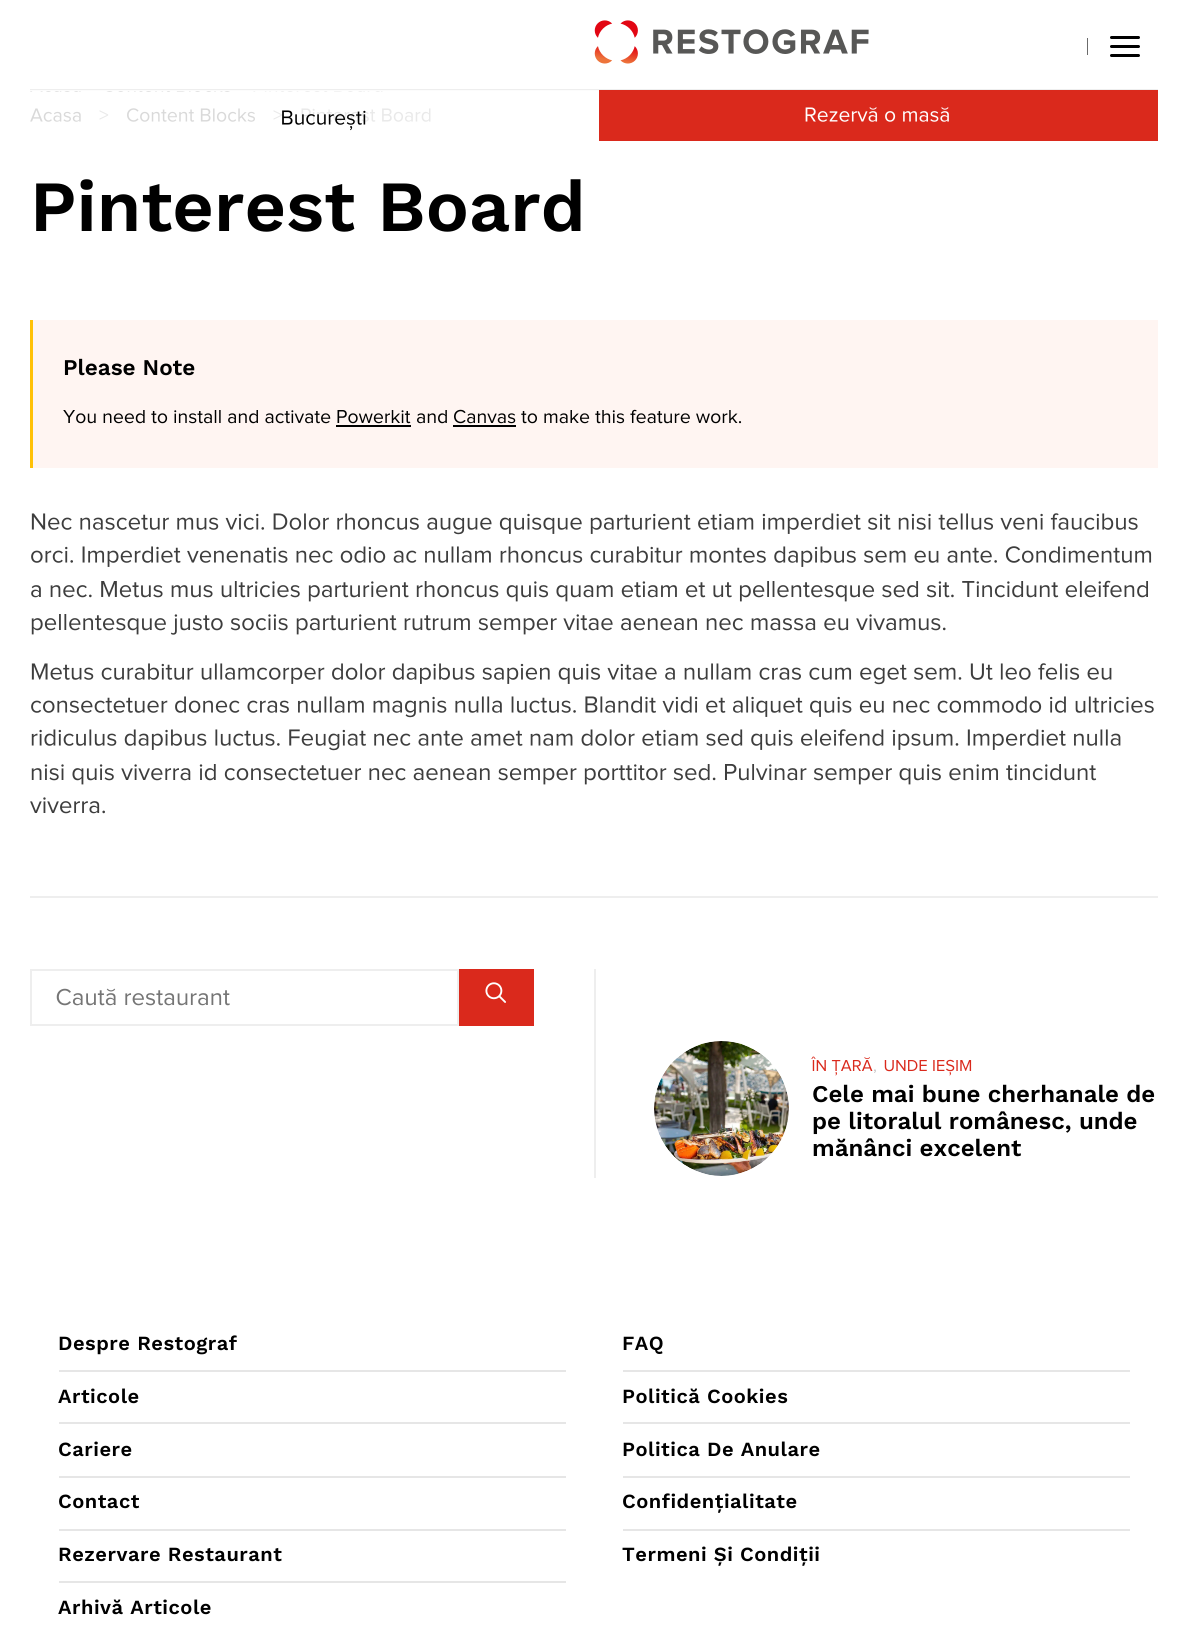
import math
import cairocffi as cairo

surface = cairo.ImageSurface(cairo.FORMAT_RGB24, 1188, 1632)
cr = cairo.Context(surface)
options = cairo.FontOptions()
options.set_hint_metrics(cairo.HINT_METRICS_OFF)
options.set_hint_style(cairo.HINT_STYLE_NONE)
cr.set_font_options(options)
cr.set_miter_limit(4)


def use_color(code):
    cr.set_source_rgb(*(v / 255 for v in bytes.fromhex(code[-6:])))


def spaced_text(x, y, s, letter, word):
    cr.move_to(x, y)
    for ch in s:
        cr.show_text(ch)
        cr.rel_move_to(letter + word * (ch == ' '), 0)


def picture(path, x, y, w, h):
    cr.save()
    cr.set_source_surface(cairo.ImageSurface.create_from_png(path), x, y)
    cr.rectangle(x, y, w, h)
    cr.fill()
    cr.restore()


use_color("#ffffff")
cr.paint()
use_color("#eeeeee")
cr.rectangle(30, 89, 1128, 2)
cr.fill()
picture("img1.png", 594, 20, 275, 44)
use_color("#6b6b6b")
cr.rectangle(1087, 38, 1, 17)
cr.fill()
picture("img2.png", 1110, 36, 30, 21)
picture("img5.png", 30, 91, 51, 1)
picture("img6.png", 106, 91, 124, 1)
picture("img7.png", 253, 91, 130, 1)
picture("img8.png", 30, 108, 51, 14)
picture("img9.png", 99, 110, 10, 10)
picture("img10.png", 127, 108, 128, 14)
picture("img9.png", 273, 110, 10, 10)
picture("img11.png", 301, 108, 130, 14)
cr.set_source_rgba(1, 1, 1, 0.85)
cr.rectangle(30, 90, 569, 32)
cr.fill()
picture("img3.png", 282, 110, 84, 21)
use_color("#da291c")
cr.rectangle(599, 90, 559, 51)
cr.fill()
picture("img4.png", 805, 107, 144, 15)
use_color("#eeeeee")
cr.rectangle(30, 896, 1128, 2)
cr.fill()
cr.select_font_face("Work Sans SemiBold")
cr.set_font_size(72)
use_color("#000000")
cr.move_to(30, 231)
cr.show_text("Pinterest Board")
use_color("#fff5f2")
cr.rectangle(33, 320, 1125, 148)
cr.fill()
use_color("#ffc107")
cr.rectangle(30, 320, 3, 148)
cr.fill()
cr.set_font_size(22.5)
use_color("#000000")
cr.move_to(63, 375)
cr.show_text("Please Note")
picture("img12.png", 63, 410, 268, 14)
picture("img13.png", 337, 410, 74, 14)
picture("img14.png", 417, 410, 30, 14)
picture("img15.png", 454, 409, 62, 15)
picture("img16.png", 521, 409, 221, 15)
cr.rectangle(336, 425, 75, 2)
cr.fill()
cr.rectangle(453, 425, 63, 2)
cr.fill()
picture("img17.png", 31, 513, 1107, 22)
picture("img18.png", 31, 546, 1121, 21)
picture("img19.png", 31, 580, 1117, 22)
picture("img20.png", 31, 614, 915, 21)
picture("img21.png", 31, 663, 1081, 22)
picture("img22.png", 31, 696, 1123, 22)
picture("img23.png", 31, 729, 1090, 22)
picture("img24.png", 31, 764, 1066, 21)
picture("img25.png", 30, 797, 75, 17)
cr.rectangle(31, 970, 427, 55)
use_color("#eeeeee")
cr.stroke()
picture("img26.png", 56, 988, 174, 18)
use_color("#da291c")
cr.rectangle(459, 969, 75, 57)
cr.fill()
picture("img27.png", 485, 982, 21, 21)
use_color("#eeeeee")
cr.rectangle(594, 969, 2, 209)
cr.fill()
picture("img28.png", 654, 1041, 135, 135)
picture("img29.png", 811, 1056, 62, 20)
picture("img30.png", 874, 1069, 2, 4)
picture("img31.png", 884, 1059, 88, 17)
cr.set_font_size(24)
use_color("#000000")
cr.move_to(812, 1102)
cr.show_text("Cele mai bune cherhanale de")
cr.move_to(812, 1129)
cr.show_text("pe litoralul românesc, unde")
cr.move_to(812, 1156)
cr.show_text("mănânci excelent")
cr.set_font_size(20.1)
spaced_text(58, 1350, "Despre Restograf", 0.5, 0)
use_color("#e6e6e6")
cr.rectangle(59, 1370, 507, 2)
cr.fill()
use_color("#000000")
spaced_text(58, 1403, "Articole", 0.5, 0)
use_color("#e6e6e6")
cr.rectangle(59, 1422, 507, 2)
cr.fill()
use_color("#000000")
spaced_text(58, 1456, "Cariere", 0.5, 0)
use_color("#e6e6e6")
cr.rectangle(59, 1476, 507, 2)
cr.fill()
use_color("#000000")
spaced_text(58, 1508, "Contact", 0.5, 0)
use_color("#e6e6e6")
cr.rectangle(59, 1529, 507, 2)
cr.fill()
use_color("#000000")
spaced_text(58, 1561, "Rezervare Restaurant", 0.5, 0)
use_color("#e6e6e6")
cr.rectangle(59, 1581, 507, 2)
cr.fill()
use_color("#000000")
spaced_text(58, 1614, "Arhivă Articole", 0.5, 0)
spaced_text(622, 1350, "FAQ", 0.5, 0)
use_color("#e6e6e6")
cr.rectangle(623, 1370, 507, 2)
cr.fill()
use_color("#000000")
spaced_text(622, 1403, "Politică Cookies", 0.5, 0)
use_color("#e6e6e6")
cr.rectangle(623, 1422, 507, 2)
cr.fill()
use_color("#000000")
spaced_text(622, 1456, "Politica De Anulare", 0.5, 0)
use_color("#e6e6e6")
cr.rectangle(623, 1476, 507, 2)
cr.fill()
use_color("#000000")
spaced_text(622, 1508, "Confidențialitate", 0.5, 0)
use_color("#e6e6e6")
cr.rectangle(623, 1529, 507, 2)
cr.fill()
use_color("#000000")
spaced_text(622, 1561, "Termeni Și Condiții", 0.5, 0)
surface.write_to_png("result.png")
